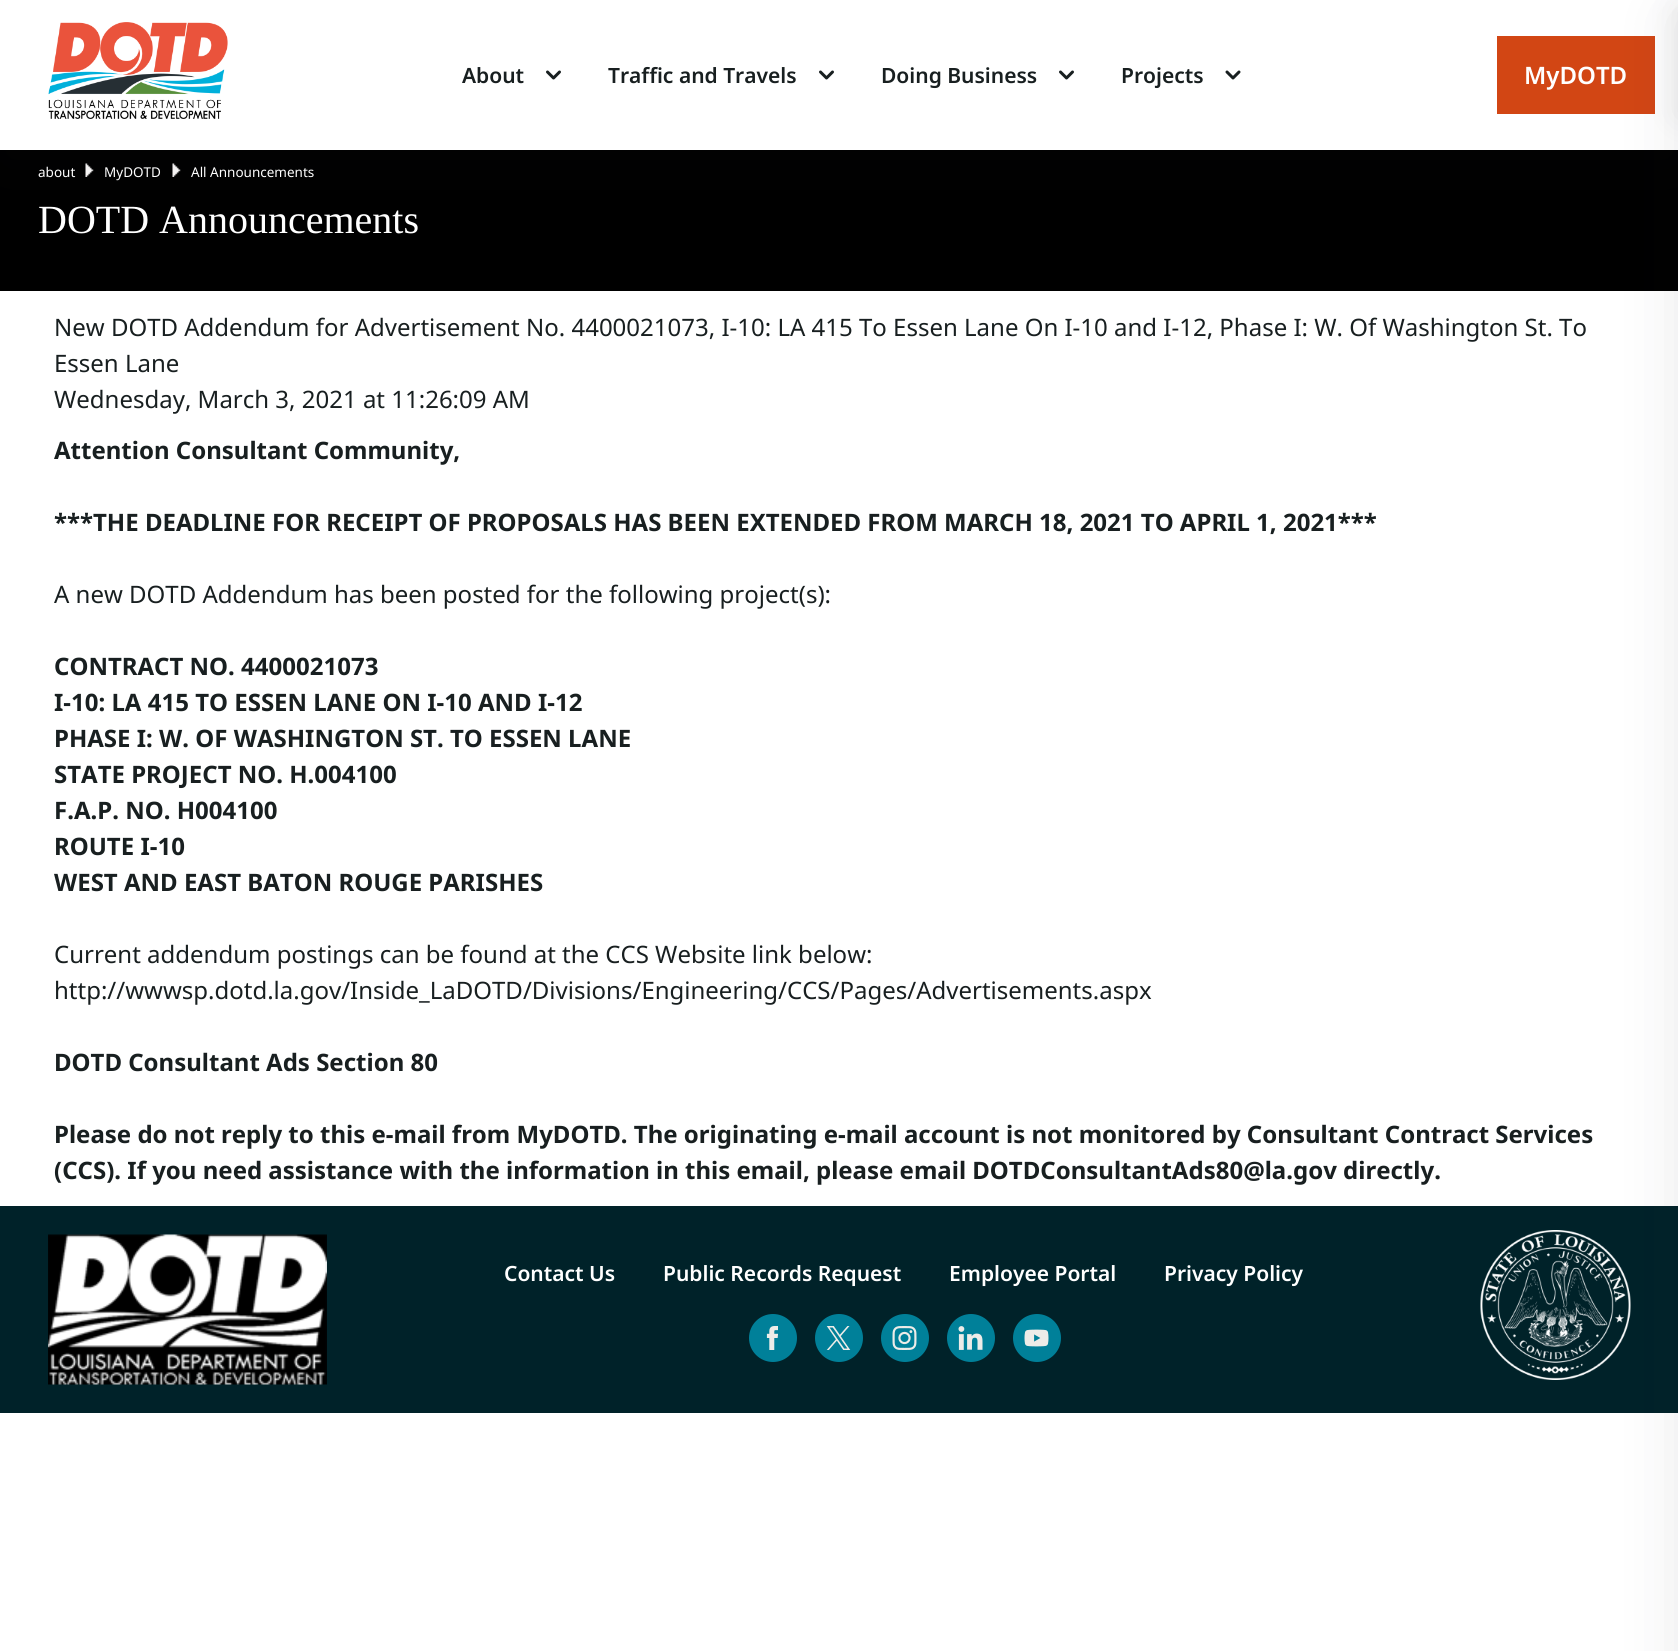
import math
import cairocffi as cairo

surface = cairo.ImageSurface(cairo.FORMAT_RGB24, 1678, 1651)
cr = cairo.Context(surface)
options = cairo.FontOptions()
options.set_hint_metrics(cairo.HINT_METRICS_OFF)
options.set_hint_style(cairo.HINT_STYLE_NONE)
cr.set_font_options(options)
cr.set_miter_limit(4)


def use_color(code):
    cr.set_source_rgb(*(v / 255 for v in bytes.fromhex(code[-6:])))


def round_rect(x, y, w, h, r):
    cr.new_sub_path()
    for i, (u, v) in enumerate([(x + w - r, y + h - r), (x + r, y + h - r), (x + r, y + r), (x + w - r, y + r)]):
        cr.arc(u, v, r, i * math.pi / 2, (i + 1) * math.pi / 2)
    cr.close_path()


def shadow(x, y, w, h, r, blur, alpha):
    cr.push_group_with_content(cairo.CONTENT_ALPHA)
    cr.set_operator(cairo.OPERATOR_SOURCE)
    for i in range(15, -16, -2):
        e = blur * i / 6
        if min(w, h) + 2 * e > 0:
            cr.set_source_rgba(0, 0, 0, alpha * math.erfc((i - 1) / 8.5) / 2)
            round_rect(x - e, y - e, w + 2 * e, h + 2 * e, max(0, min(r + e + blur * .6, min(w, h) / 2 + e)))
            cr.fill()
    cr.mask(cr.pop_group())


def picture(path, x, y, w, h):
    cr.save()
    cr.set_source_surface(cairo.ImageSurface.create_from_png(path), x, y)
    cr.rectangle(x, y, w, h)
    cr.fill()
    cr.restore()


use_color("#ffffff")
cr.paint()
use_color("#000000")
cr.rectangle(0, 150, 1678, 141)
cr.fill()
picture("img4.png", 85, 163, 9, 14)
picture("img4.png", 172, 163, 9, 14)
cr.save()
cr.rectangle(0, 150, 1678, 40)
cr.clip()
use_color("#181f20")
shadow(0, 15, 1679, 150, 0, 30, 0.1)
cr.restore()
picture("img1.png", 48, 22, 180, 97)
cr.select_font_face("Noto Sans SemiBold")
cr.set_font_size(21)
use_color("#181f20")
cr.move_to(462, 83)
cr.show_text("About")
picture("img2.png", 546, 70, 15, 10)
cr.move_to(608, 83)
cr.show_text("Traffic and Travels")
picture("img2.png", 819, 70, 15, 10)
cr.move_to(881, 83)
cr.show_text("Doing Business")
picture("img2.png", 1059, 70, 15, 10)
cr.move_to(1121, 83)
cr.show_text("Projects")
picture("img3.png", 1225, 70, 16, 10)
use_color("#d24614")
cr.rectangle(1497, 36, 158, 78)
cr.fill()
cr.set_font_size(24)
use_color("#ffffff")
cr.move_to(1524, 84)
cr.show_text("MyDOTD")
use_color("#002229")
cr.rectangle(0, 1206, 1678, 207)
cr.fill()
picture("img11.png", 1480, 1230, 151, 150)
use_color("#181f20")
shadow(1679, 15, 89, 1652, 0, 30, 0.1)
shadow(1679, 8, 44, 108, 0, 15, 0.1)
cr.select_font_face("Noto Sans")
cr.set_font_size(13.5)
use_color("#ffffff")
cr.move_to(38, 177)
cr.show_text("about")
cr.move_to(104, 177)
cr.show_text("MyDOTD")
cr.move_to(191, 177)
cr.show_text("All Announcements")
cr.select_font_face("Liberation Serif")
cr.set_font_size(40)
cr.move_to(38, 233)
cr.show_text("DOTD Announcements")
cr.select_font_face("Noto Sans")
cr.set_font_size(24)
use_color("#181f20")
cr.move_to(54, 336)
cr.show_text("New DOTD Addendum for Advertisement No. 4400021073, I-10: LA 415 To Essen Lane On I-10 and I-12, Phase I: W. Of Washington St. To")
cr.move_to(54, 372)
cr.show_text("Essen Lane")
cr.move_to(54, 408)
cr.show_text("Wednesday, March 3, 2021 at 11:26:09 AM")
cr.select_font_face("Noto Sans", cairo.FONT_SLANT_NORMAL, cairo.FONT_WEIGHT_BOLD)
cr.move_to(54, 459)
cr.show_text("Attention Consultant Community,")
cr.move_to(54, 531)
cr.show_text("***THE DEADLINE FOR RECEIPT OF PROPOSALS HAS BEEN EXTENDED FROM MARCH 18, 2021 TO APRIL 1, 2021***")
cr.select_font_face("Noto Sans")
cr.move_to(54, 603)
cr.show_text("A new DOTD Addendum has been posted for the following project(s):")
cr.select_font_face("Noto Sans", cairo.FONT_SLANT_NORMAL, cairo.FONT_WEIGHT_BOLD)
cr.move_to(54, 675)
cr.show_text("CONTRACT NO. 4400021073")
cr.move_to(54, 711)
cr.show_text("I-10: LA 415 TO ESSEN LANE ON I-10 AND I-12")
cr.move_to(54, 747)
cr.show_text("PHASE I: W. OF WASHINGTON ST. TO ESSEN LANE")
cr.move_to(54, 783)
cr.show_text("STATE PROJECT NO. H.004100")
cr.move_to(54, 819)
cr.show_text("F.A.P. NO. H004100")
cr.move_to(54, 855)
cr.show_text("ROUTE I-10")
cr.move_to(54, 891)
cr.show_text("WEST AND EAST BATON ROUGE PARISHES")
cr.select_font_face("Noto Sans")
cr.move_to(54, 963)
cr.show_text("Current addendum postings can be found at the CCS Website link below:")
cr.move_to(54, 999)
cr.show_text("http://wwwsp.dotd.la.gov/Inside_LaDOTD/Divisions/Engineering/CCS/Pages/Advertisements.aspx")
cr.select_font_face("Noto Sans", cairo.FONT_SLANT_NORMAL, cairo.FONT_WEIGHT_BOLD)
cr.move_to(54, 1071)
cr.show_text("DOTD Consultant Ads Section 80")
cr.move_to(54, 1143)
cr.show_text("Please do not reply to this e-mail from MyDOTD. The originating e-mail account is not monitored by Consultant Contract Services")
cr.move_to(54, 1179)
cr.show_text("(CCS). If you need assistance with the information in this email, please email DOTDConsultantAds80@la.gov directly.")
picture("img5.png", 48, 1234, 279, 151)
cr.select_font_face("Noto Sans SemiBold")
cr.set_font_size(21)
use_color("#ffffff")
cr.move_to(504, 1281)
cr.show_text("Contact Us")
cr.move_to(663, 1281)
cr.show_text("Public Records Request")
cr.move_to(949, 1281)
cr.show_text("Employee Portal")
cr.move_to(1164, 1281)
cr.show_text("Privacy Policy")
use_color("#008099")
cr.new_path()
cr.arc(773, 1338, 22.5, 0, 2 * math.pi)
cr.fill_preserve()
cr.set_line_width(3)
cr.stroke()
picture("img6.png", 766, 1326, 12, 24)
cr.arc(839, 1338, 22.5, 0, 2 * math.pi)
cr.fill_preserve()
cr.stroke()
picture("img7.png", 826, 1326, 25, 24)
cr.arc(905, 1338, 22.5, 0, 2 * math.pi)
cr.fill_preserve()
cr.stroke()
picture("img8.png", 892, 1326, 25, 24)
cr.arc(971, 1338, 22.5, 0, 2 * math.pi)
cr.fill_preserve()
cr.stroke()
picture("img9.png", 958, 1326, 25, 24)
cr.arc(1037, 1338, 22.5, 0, 2 * math.pi)
cr.fill_preserve()
cr.stroke()
picture("img10.png", 1024, 1329, 25, 18)
surface.write_to_png("result.png")
